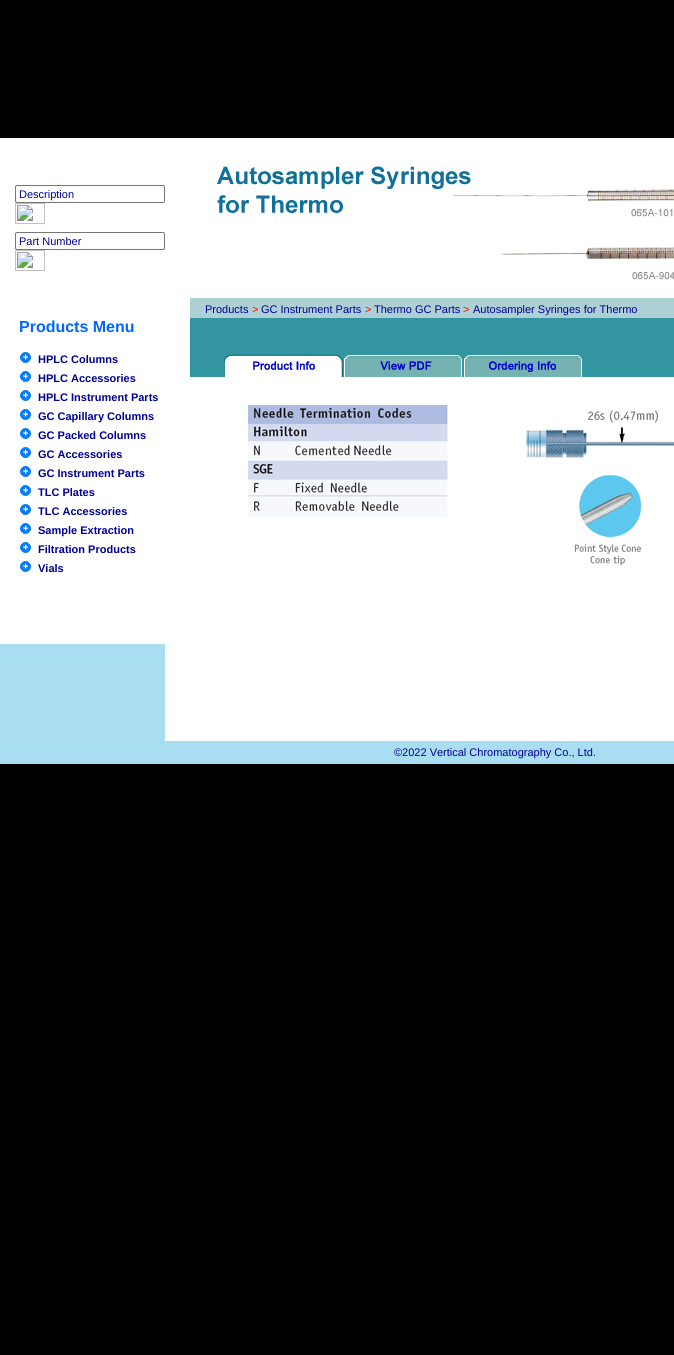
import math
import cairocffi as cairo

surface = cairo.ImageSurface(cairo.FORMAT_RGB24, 674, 1355)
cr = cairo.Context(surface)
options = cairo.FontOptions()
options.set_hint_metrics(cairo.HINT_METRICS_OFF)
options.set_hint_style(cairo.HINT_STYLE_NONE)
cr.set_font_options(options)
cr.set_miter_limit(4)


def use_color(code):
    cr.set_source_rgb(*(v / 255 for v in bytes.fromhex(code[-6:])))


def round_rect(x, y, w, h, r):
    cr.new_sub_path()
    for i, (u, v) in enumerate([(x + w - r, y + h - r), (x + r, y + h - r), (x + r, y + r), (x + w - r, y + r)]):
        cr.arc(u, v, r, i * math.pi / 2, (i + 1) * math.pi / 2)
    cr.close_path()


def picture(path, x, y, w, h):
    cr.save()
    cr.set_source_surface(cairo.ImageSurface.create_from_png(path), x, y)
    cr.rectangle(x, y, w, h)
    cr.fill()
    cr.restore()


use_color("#000000")
cr.paint()
use_color("#ffffff")
cr.rectangle(0, 138, 674, 483)
cr.fill()
round_rect(15.5, 185.5, 149, 17, 1.5)
use_color("#767676")
cr.set_line_width(1)
cr.stroke()
cr.select_font_face("Liberation Sans")
cr.set_font_size(11)
use_color("#000099")
cr.move_to(19, 198)
cr.show_text("Description")
picture("img1.png", 15, 203, 30, 21)
round_rect(15.5, 232.5, 149, 17, 1.5)
use_color("#767676")
cr.stroke()
use_color("#000099")
cr.move_to(19, 245)
cr.show_text("Part Number")
picture("img1.png", 15, 250, 30, 21)
use_color("#add0d4")
cr.rectangle(190, 298, 484, 20)
cr.fill()
picture("img2.png", 190, 138, 484, 160)
use_color("#000099")
cr.move_to(205, 313)
cr.show_text("Products")
use_color("#ff0000")
cr.move_to(252, 313)
cr.show_text(">")
use_color("#000099")
cr.move_to(261, 313)
cr.show_text("GC Instrument Parts")
use_color("#ff0000")
cr.move_to(365, 313)
cr.show_text(">")
use_color("#000099")
cr.move_to(374, 313)
cr.show_text("Thermo GC Parts")
use_color("#ff0000")
cr.move_to(463, 313)
cr.show_text(">")
use_color("#000099")
cr.move_to(473, 313)
cr.show_text("Autosampler Syringes for Thermo")
cr.select_font_face("Liberation Sans", cairo.FONT_SLANT_NORMAL, cairo.FONT_WEIGHT_BOLD)
cr.set_font_size(16)
use_color("#0066ff")
cr.move_to(19, 332)
cr.show_text("Products Menu")
picture("img3.png", 20, 352, 11, 11)
cr.set_font_size(11)
use_color("#000099")
cr.move_to(38, 363)
cr.show_text("HPLC Columns")
picture("img3.png", 20, 371, 11, 11)
cr.move_to(38, 382)
cr.show_text("HPLC Accessories")
picture("img3.png", 20, 390, 11, 11)
cr.move_to(38, 401)
cr.show_text("HPLC Instrument Parts")
picture("img3.png", 20, 409, 11, 11)
cr.move_to(38, 420)
cr.show_text("GC Capillary Columns")
picture("img3.png", 20, 428, 11, 11)
cr.move_to(38, 439)
cr.show_text("GC Packed Columns")
picture("img3.png", 20, 447, 11, 11)
cr.move_to(38, 458)
cr.show_text("GC Accessories")
picture("img3.png", 20, 466, 11, 11)
cr.move_to(38, 477)
cr.show_text("GC Instrument Parts")
picture("img3.png", 20, 485, 11, 11)
cr.move_to(38, 496)
cr.show_text("TLC Plates")
picture("img3.png", 20, 504, 11, 11)
cr.move_to(38, 515)
cr.show_text("TLC Accessories")
picture("img3.png", 20, 523, 11, 11)
cr.move_to(38, 534)
cr.show_text("Sample Extraction")
picture("img3.png", 20, 542, 11, 11)
cr.move_to(38, 553)
cr.show_text("Filtration Products")
picture("img3.png", 20, 561, 11, 11)
cr.move_to(38, 572)
cr.show_text("Vials")
use_color("#3295a1")
cr.rectangle(190, 318, 484, 59)
cr.fill()
picture("img4.png", 224, 354, 119, 23)
picture("img5.png", 344, 355, 118, 22)
picture("img6.png", 464, 355, 118, 22)
picture("img7.png", 248, 405, 200, 112)
picture("img8.png", 526, 410, 148, 48)
picture("img9.png", 574, 475, 68, 91)
use_color("#a9ddf2")
cr.rectangle(0, 644, 165, 120)
cr.fill()
use_color("#ffffff")
cr.rectangle(0, 621, 165, 23)
cr.fill()
use_color("#a9ddf2")
cr.rectangle(165, 741, 509, 23)
cr.fill()
use_color("#ffffff")
cr.rectangle(165, 621, 509, 120)
cr.fill()
cr.select_font_face("Liberation Sans")
use_color("#000099")
cr.move_to(394, 756)
cr.show_text("©2022 Vertical Chromatography Co., Ltd.")
surface.write_to_png("result.png")
